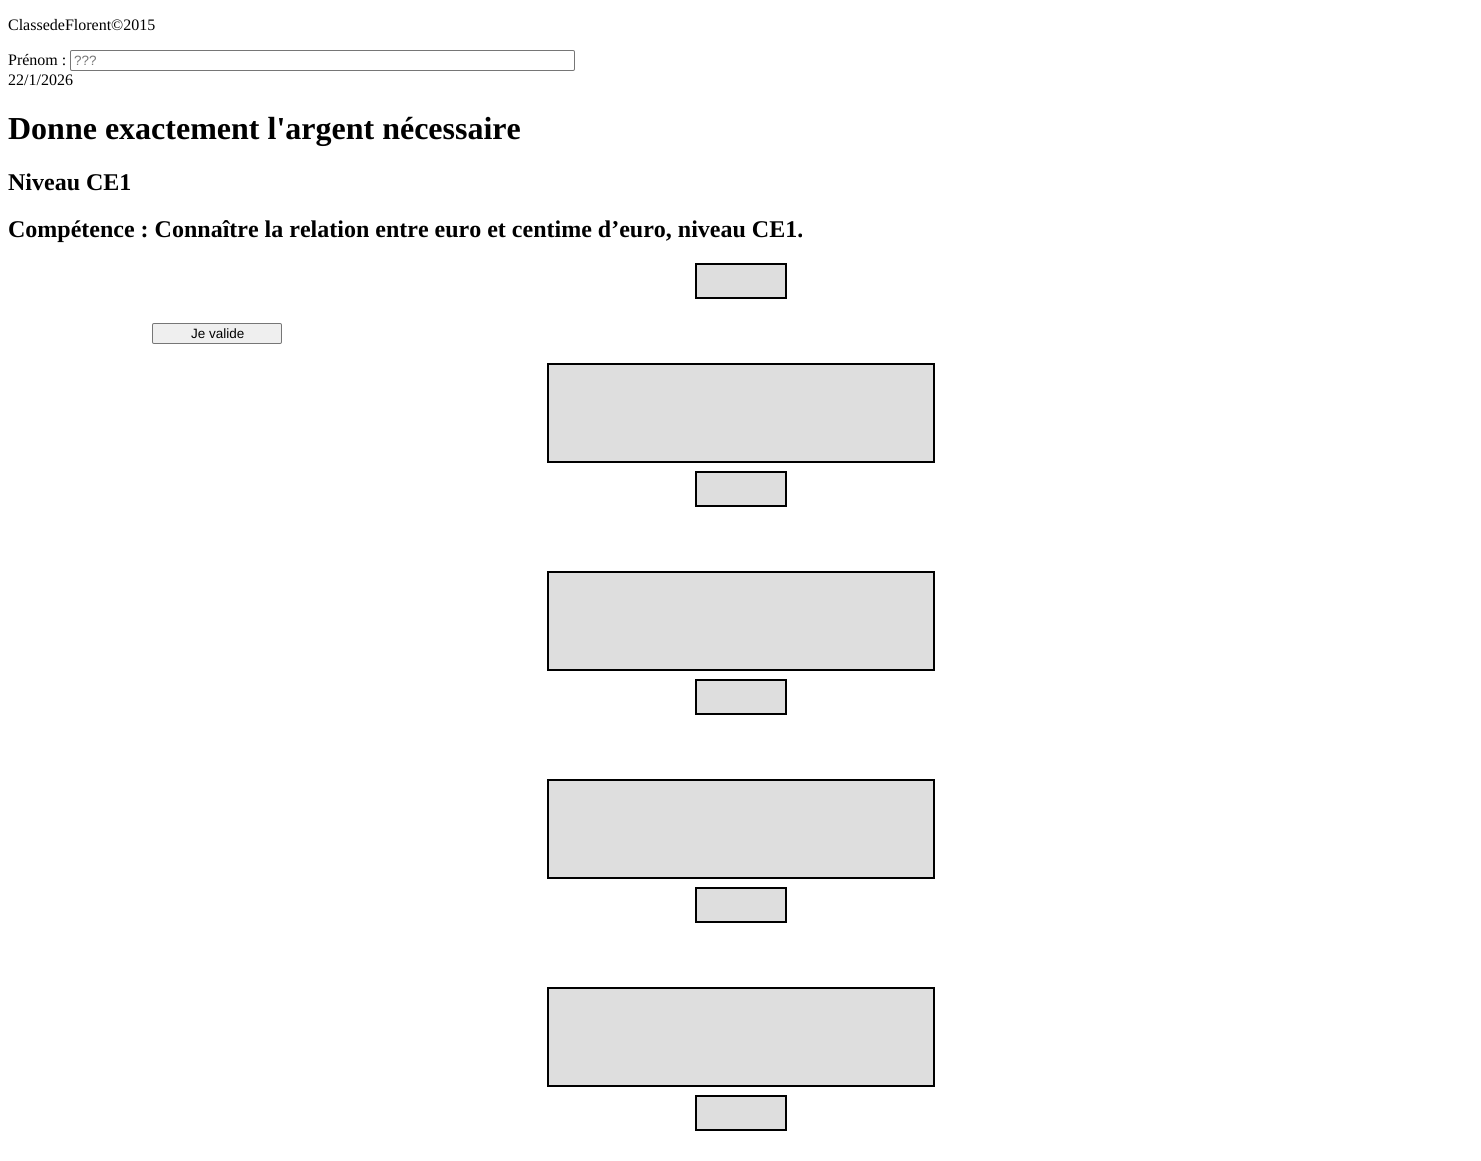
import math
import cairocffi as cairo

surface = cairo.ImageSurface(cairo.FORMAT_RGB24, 1481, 1161)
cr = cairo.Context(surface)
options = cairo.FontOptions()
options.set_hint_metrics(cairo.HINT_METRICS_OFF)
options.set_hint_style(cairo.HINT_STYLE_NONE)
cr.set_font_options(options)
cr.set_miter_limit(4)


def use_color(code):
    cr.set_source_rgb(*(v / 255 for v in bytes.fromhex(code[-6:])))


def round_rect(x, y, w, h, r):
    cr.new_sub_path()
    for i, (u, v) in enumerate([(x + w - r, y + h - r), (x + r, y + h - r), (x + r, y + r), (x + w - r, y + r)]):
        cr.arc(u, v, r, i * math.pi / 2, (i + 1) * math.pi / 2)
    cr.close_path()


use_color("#ffffff")
cr.paint()
cr.select_font_face("Liberation Serif")
cr.set_font_size(16)
use_color("#000000")
cr.move_to(8, 30)
cr.show_text("ClassedeFlorent©2015")
cr.move_to(8, 65)
cr.show_text("Prénom :")
round_rect(70.5, 50.5, 504, 20, 1.5)
use_color("#767676")
cr.set_line_width(1)
cr.stroke()
cr.select_font_face("Liberation Sans")
cr.set_font_size(13.5)
use_color("#757575")
cr.move_to(74, 65)
cr.show_text("???")
cr.select_font_face("Liberation Serif")
cr.set_font_size(16)
use_color("#000000")
cr.move_to(8, 85)
cr.show_text("22/1/2026")
cr.select_font_face("Liberation Serif", cairo.FONT_SLANT_NORMAL, cairo.FONT_WEIGHT_BOLD)
cr.set_font_size(32)
cr.move_to(8, 139)
cr.show_text("Donne exactement l'argent nécessaire")
cr.set_font_size(24)
cr.move_to(8, 190)
cr.show_text("Niveau CE1")
cr.move_to(8, 237)
cr.show_text("Compétence : Connaître la relation entre euro et centime d’euro, niveau CE1.")
use_color("#dedede")
cr.rectangle(696, 264, 90, 34)
cr.fill_preserve()
use_color("#000000")
cr.set_line_width(2)
cr.stroke()
use_color("#efefef")
round_rect(152.5, 323.5, 129, 20, 1.5)
cr.fill_preserve()
use_color("#767676")
cr.set_line_width(1)
cr.stroke()
cr.select_font_face("Liberation Sans")
cr.set_font_size(13.5)
use_color("#000000")
cr.move_to(191, 338)
cr.show_text("Je valide")
use_color("#dedede")
cr.rectangle(548, 364, 386, 98)
cr.fill_preserve()
use_color("#000000")
cr.set_line_width(2)
cr.stroke()
use_color("#dedede")
cr.rectangle(696, 472, 90, 34)
cr.fill_preserve()
use_color("#000000")
cr.stroke()
use_color("#dedede")
cr.rectangle(548, 572, 386, 98)
cr.fill_preserve()
use_color("#000000")
cr.stroke()
use_color("#dedede")
cr.rectangle(696, 680, 90, 34)
cr.fill_preserve()
use_color("#000000")
cr.stroke()
use_color("#dedede")
cr.rectangle(548, 780, 386, 98)
cr.fill_preserve()
use_color("#000000")
cr.stroke()
use_color("#dedede")
cr.rectangle(696, 888, 90, 34)
cr.fill_preserve()
use_color("#000000")
cr.stroke()
use_color("#dedede")
cr.rectangle(548, 988, 386, 98)
cr.fill_preserve()
use_color("#000000")
cr.stroke()
use_color("#dedede")
cr.rectangle(696, 1096, 90, 34)
cr.fill_preserve()
use_color("#000000")
cr.stroke()
surface.write_to_png("result.png")
